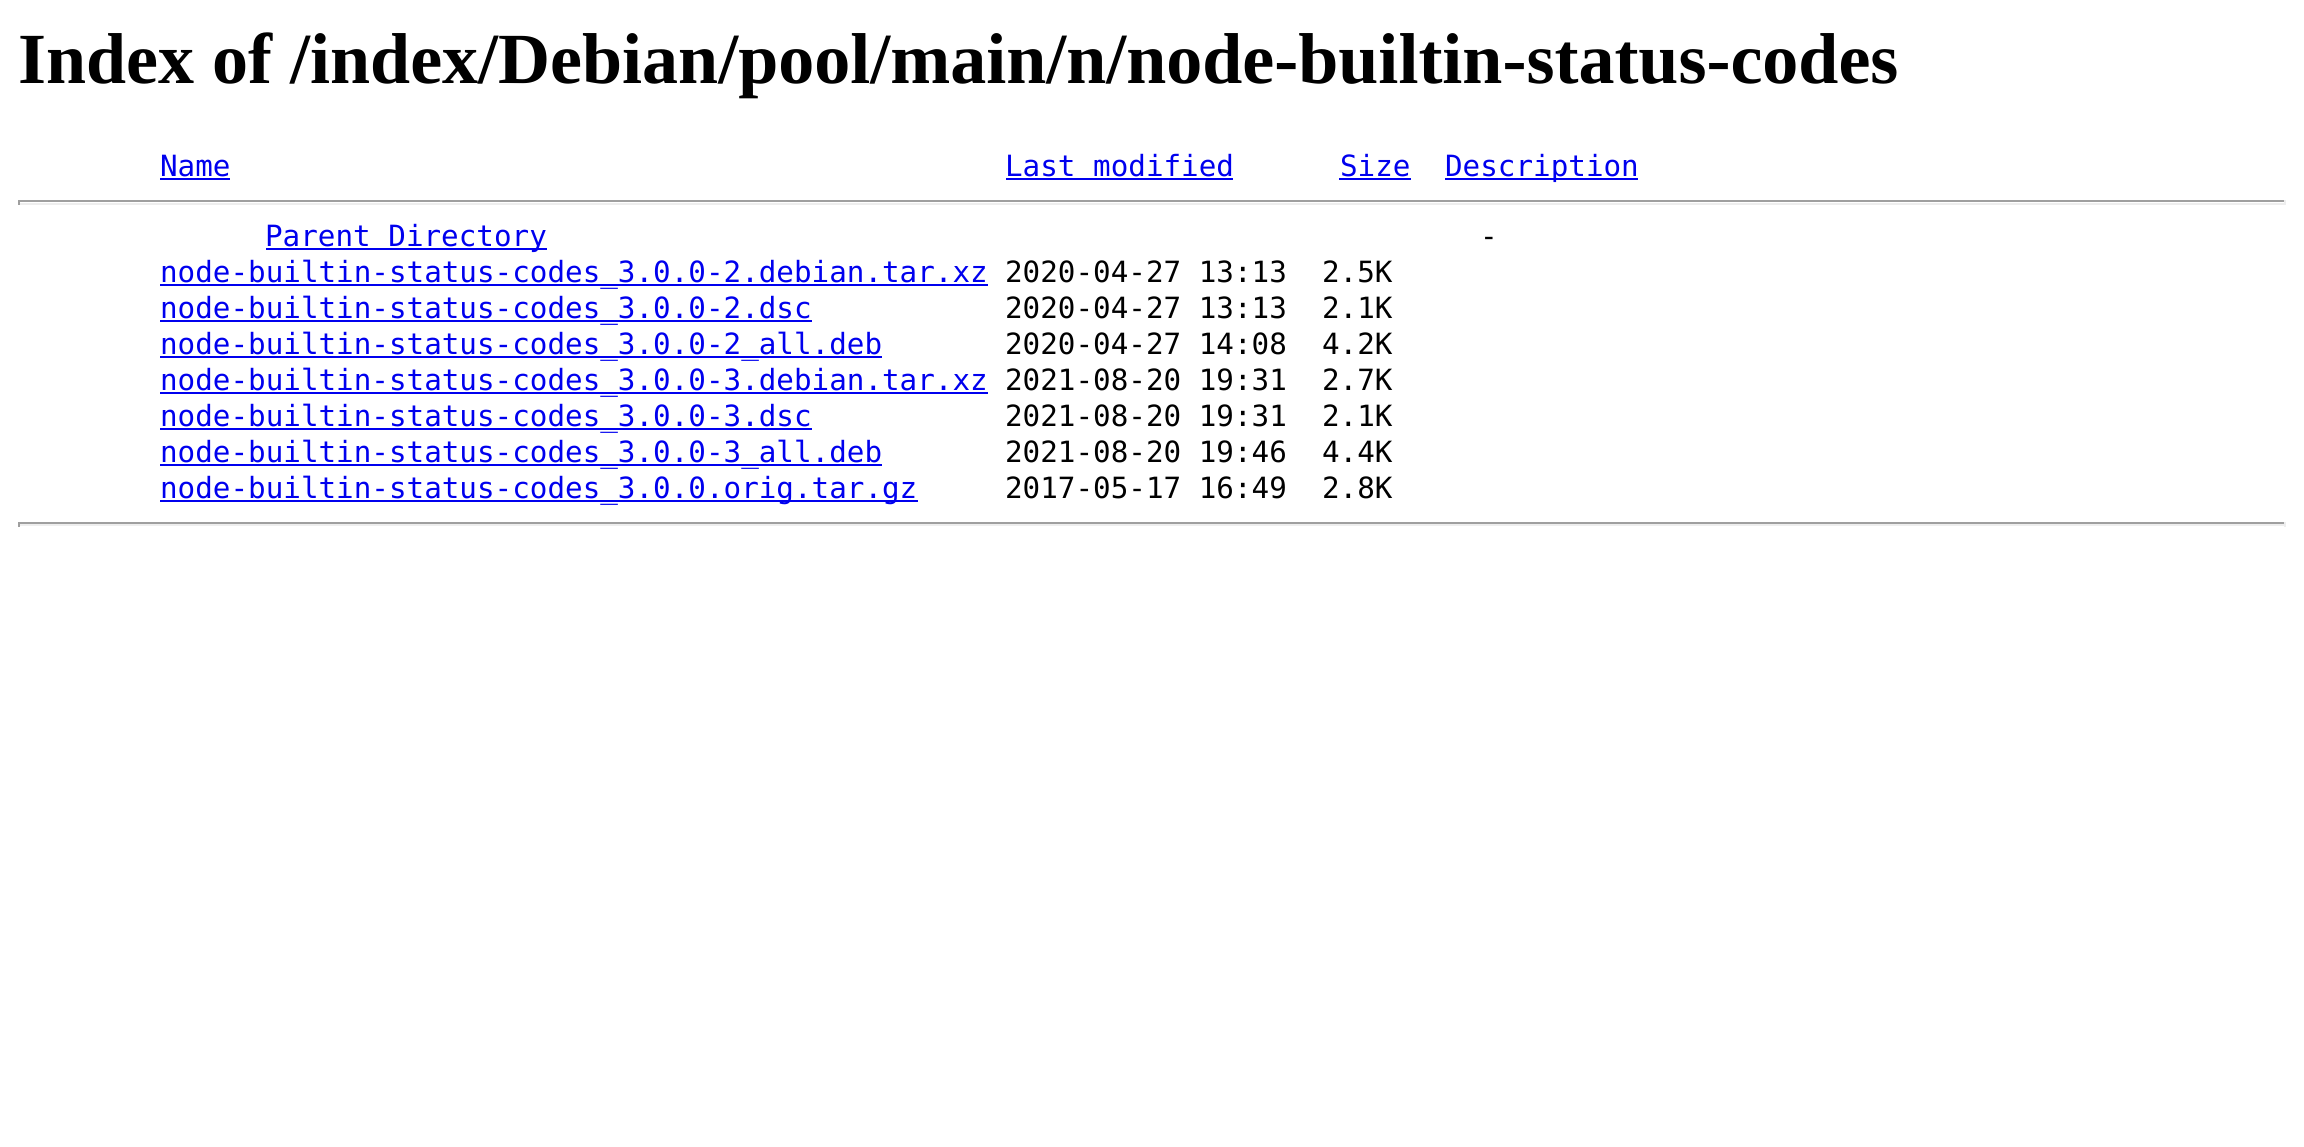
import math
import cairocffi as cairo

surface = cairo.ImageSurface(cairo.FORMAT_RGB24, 2304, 1147)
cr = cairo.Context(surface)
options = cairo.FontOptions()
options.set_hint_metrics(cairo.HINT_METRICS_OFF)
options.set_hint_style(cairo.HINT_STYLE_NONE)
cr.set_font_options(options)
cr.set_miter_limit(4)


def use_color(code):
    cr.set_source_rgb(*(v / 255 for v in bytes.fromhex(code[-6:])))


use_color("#ffffff")
cr.paint()
cr.select_font_face("Liberation Serif", cairo.FONT_SLANT_NORMAL, cairo.FONT_WEIGHT_BOLD)
cr.set_font_size(72)
use_color("#000000")
cr.move_to(18, 83)
cr.show_text("Index of /index/Debian/pool/main/n/node-builtin-status-codes")
cr.select_font_face("DejaVu Sans Mono")
cr.set_font_size(29.25)
use_color("#0000ee")
cr.move_to(160, 176)
cr.show_text("Name")
cr.rectangle(160, 178, 70, 2)
cr.fill()
cr.move_to(1005, 176)
cr.show_text("Last modified")
cr.rectangle(1006, 178, 227, 2)
cr.fill()
cr.move_to(1340, 176)
cr.show_text("Size")
cr.rectangle(1339, 178, 72, 2)
cr.fill()
cr.rectangle(1445, 178, 193, 2)
cr.fill()
cr.move_to(1445, 176)
cr.show_text("Description")
use_color("#9f9f9f")
cr.rectangle(18, 200, 2268, 2)
cr.fill()
use_color("#eeeeee")
cr.rectangle(2284, 200, 2, 5)
cr.fill()
cr.rectangle(18, 203, 2268, 2)
cr.fill()
use_color("#9f9f9f")
cr.rectangle(18, 200, 2, 5)
cr.fill()
use_color("#0000ee")
cr.rectangle(266, 248, 281, 2)
cr.fill()
cr.move_to(265, 246)
cr.show_text("Parent Directory")
use_color("#000000")
cr.move_to(1480, 246)
cr.show_text("-")
use_color("#0000ee")
cr.rectangle(160, 284, 828, 2)
cr.fill()
cr.move_to(160, 282)
cr.show_text("node-builtin-status-codes_3.0.0-2.debian.tar.xz")
use_color("#000000")
cr.move_to(1005, 282)
cr.show_text("2020-04-27 13:13  2.5K")
use_color("#0000ee")
cr.rectangle(160, 320, 652, 2)
cr.fill()
cr.move_to(160, 318)
cr.show_text("node-builtin-status-codes_3.0.0-2.dsc")
use_color("#000000")
cr.move_to(1005, 318)
cr.show_text("2020-04-27 13:13  2.1K")
use_color("#0000ee")
cr.rectangle(160, 356, 722, 2)
cr.fill()
cr.move_to(160, 354)
cr.show_text("node-builtin-status-codes_3.0.0-2_all.deb")
use_color("#000000")
cr.move_to(1005, 354)
cr.show_text("2020-04-27 14:08  4.2K")
use_color("#0000ee")
cr.rectangle(160, 392, 828, 2)
cr.fill()
cr.move_to(160, 390)
cr.show_text("node-builtin-status-codes_3.0.0-3.debian.tar.xz")
use_color("#000000")
cr.move_to(1005, 390)
cr.show_text("2021-08-20 19:31  2.7K")
use_color("#0000ee")
cr.rectangle(160, 428, 652, 2)
cr.fill()
cr.move_to(160, 426)
cr.show_text("node-builtin-status-codes_3.0.0-3.dsc")
use_color("#000000")
cr.move_to(1005, 426)
cr.show_text("2021-08-20 19:31  2.1K")
use_color("#0000ee")
cr.rectangle(160, 464, 722, 2)
cr.fill()
cr.move_to(160, 462)
cr.show_text("node-builtin-status-codes_3.0.0-3_all.deb")
use_color("#000000")
cr.move_to(1005, 462)
cr.show_text("2021-08-20 19:46  4.4K")
use_color("#0000ee")
cr.rectangle(160, 500, 758, 2)
cr.fill()
cr.move_to(160, 498)
cr.show_text("node-builtin-status-codes_3.0.0.orig.tar.gz")
use_color("#000000")
cr.move_to(1005, 498)
cr.show_text("2017-05-17 16:49  2.8K")
use_color("#9f9f9f")
cr.rectangle(18, 522, 2268, 2)
cr.fill()
use_color("#eeeeee")
cr.rectangle(2284, 522, 2, 5)
cr.fill()
cr.rectangle(18, 524, 2268, 2)
cr.fill()
use_color("#9f9f9f")
cr.rectangle(18, 522, 2, 5)
cr.fill()
surface.write_to_png("result.png")
